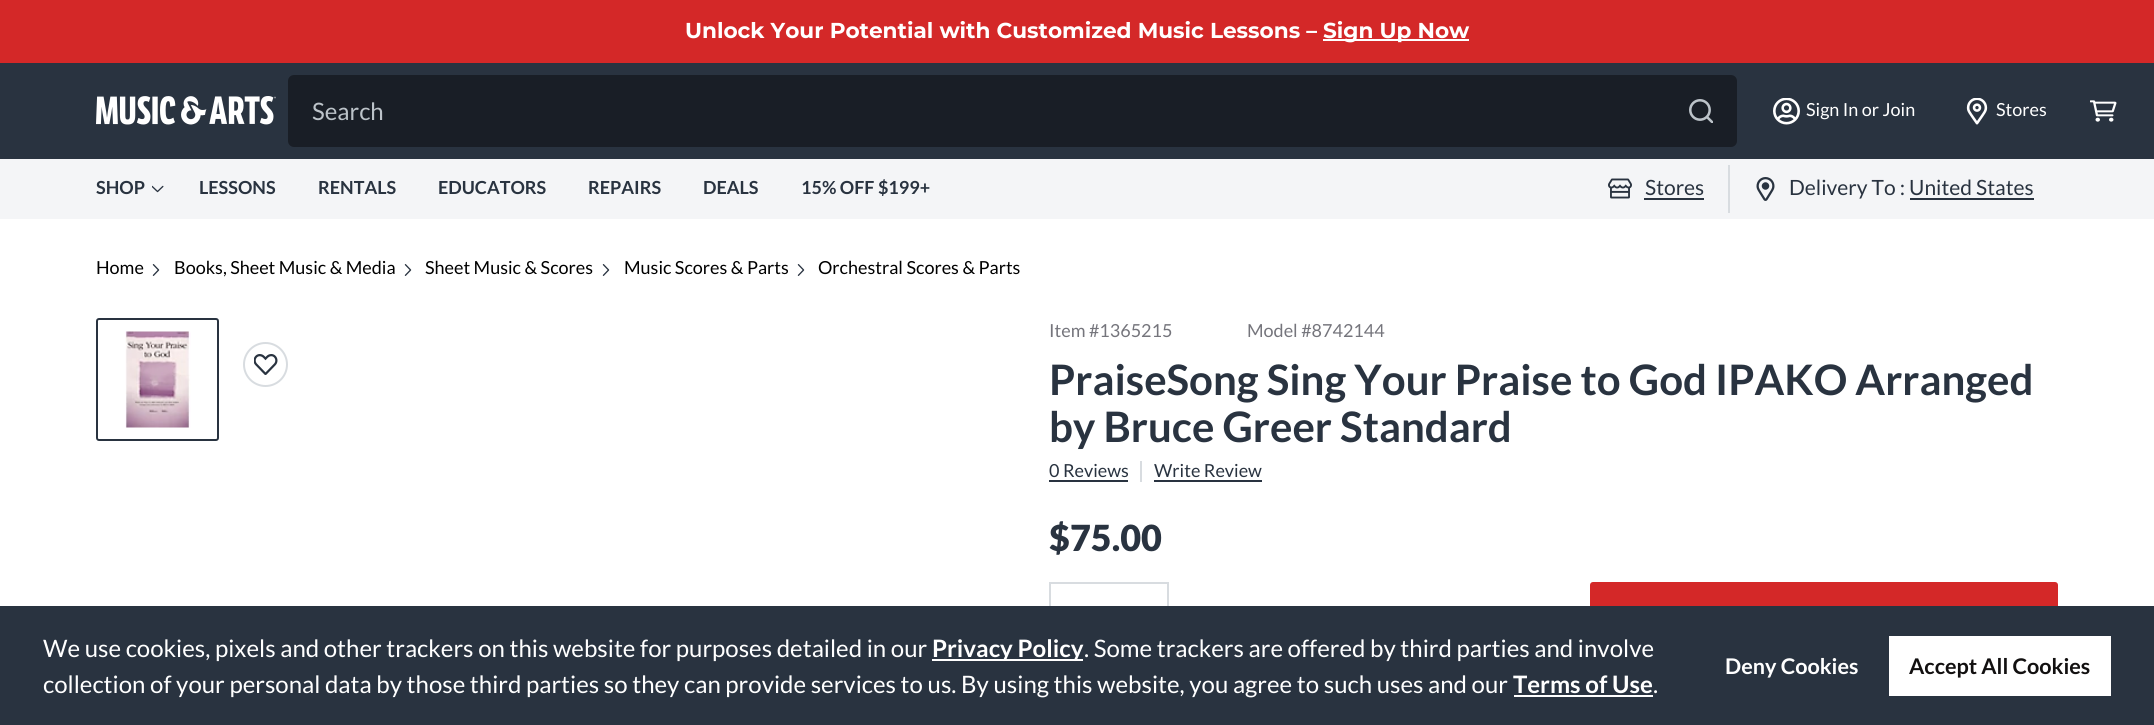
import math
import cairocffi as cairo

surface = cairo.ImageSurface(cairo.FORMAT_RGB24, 2154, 725)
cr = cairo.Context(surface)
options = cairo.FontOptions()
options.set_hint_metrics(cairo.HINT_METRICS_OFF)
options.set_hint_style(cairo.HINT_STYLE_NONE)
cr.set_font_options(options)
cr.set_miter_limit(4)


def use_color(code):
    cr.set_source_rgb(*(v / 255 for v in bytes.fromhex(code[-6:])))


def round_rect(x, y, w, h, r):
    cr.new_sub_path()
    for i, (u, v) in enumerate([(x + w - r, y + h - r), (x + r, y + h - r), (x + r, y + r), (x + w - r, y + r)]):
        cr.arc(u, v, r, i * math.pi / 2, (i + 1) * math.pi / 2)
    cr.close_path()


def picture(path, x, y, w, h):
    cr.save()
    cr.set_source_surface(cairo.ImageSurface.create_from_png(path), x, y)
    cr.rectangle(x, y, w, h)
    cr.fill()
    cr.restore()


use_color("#ffffff")
cr.paint()
use_color("#d42828")
cr.rectangle(0, 0, 2154, 63)
cr.fill()
cr.select_font_face("Montserrat", cairo.FONT_SLANT_NORMAL, cairo.FONT_WEIGHT_BOLD)
cr.set_font_size(21.6)
use_color("#ffffff")
cr.move_to(685, 38)
cr.show_text("Unlock Your Potential with Customized Music Lessons –")
cr.rectangle(1323, 39, 146, 2)
cr.fill()
cr.move_to(1323, 38)
cr.show_text("Sign Up Now")
use_color("#293340")
cr.rectangle(0, 63, 2154, 96)
cr.fill()
picture("img1.png", 96, 96, 180, 29)
use_color("#191e26")
round_rect(288, 75, 1449, 72, 6)
cr.fill()
cr.select_font_face("Lato")
cr.set_font_size(24)
use_color("#bcc3c9")
cr.move_to(312, 120)
cr.show_text("Search")
picture("img2.png", 1689, 99, 24, 24)
picture("img3.png", 1773, 98, 27, 27)
cr.set_font_size(18)
use_color("#ffffff")
cr.move_to(1806, 116)
cr.show_text("Sign In or Join")
picture("img4.png", 1966, 98, 22, 27)
cr.move_to(1996, 116)
cr.show_text("Stores")
picture("img5.png", 2090, 100, 27, 22)
use_color("#f4f5f7")
cr.rectangle(0, 159, 2154, 60)
cr.fill()
cr.select_font_face("Lato", cairo.FONT_SLANT_NORMAL, cairo.FONT_WEIGHT_BOLD)
use_color("#293340")
cr.move_to(96, 194)
cr.show_text("SHOP")
picture("img6.png", 152, 185, 12, 8)
cr.move_to(199, 194)
cr.show_text("LESSONS")
cr.move_to(318, 194)
cr.show_text("RENTALS")
cr.move_to(438, 194)
cr.show_text("EDUCATORS")
cr.move_to(588, 194)
cr.show_text("REPAIRS")
cr.move_to(703, 194)
cr.show_text("DEALS")
cr.move_to(801, 194)
cr.show_text("15% OFF $199+")
picture("img7.png", 1608, 178, 24, 21)
cr.select_font_face("Lato")
cr.set_font_size(21)
cr.move_to(1645, 195)
cr.show_text("Stores")
cr.rectangle(1644, 198, 60, 2)
cr.fill()
use_color("#d8dce0")
cr.rectangle(1728, 165, 2, 48)
cr.fill()
picture("img8.png", 1756, 177, 19, 24)
use_color("#293340")
cr.move_to(1789, 195)
cr.show_text("Delivery To : United States")
cr.rectangle(1910, 198, 124, 2)
cr.fill()
cr.set_font_size(18)
use_color("#000000")
cr.move_to(96, 274)
cr.show_text("Home")
picture("img9.png", 152, 264, 8, 12)
cr.move_to(174, 274)
cr.show_text("Books, Sheet Music & Media")
picture("img9.png", 404, 264, 8, 12)
cr.move_to(425, 274)
cr.show_text("Sheet Music & Scores")
picture("img9.png", 602, 264, 8, 12)
cr.move_to(624, 274)
cr.show_text("Music Scores & Parts")
picture("img9.png", 797, 264, 8, 12)
cr.move_to(818, 274)
cr.show_text("Orchestral Scores & Parts")
round_rect(97, 319, 121, 121, 2)
use_color("#293340")
cr.stroke()
picture("img10.png", 125, 331, 66, 97)
cr.arc(265.5, 364.5, 21.5, 0, 2 * math.pi)
use_color("#d8dce0")
cr.stroke()
picture("img11.png", 254, 354, 24, 21)
use_color("#75757c")
cr.move_to(1049, 337)
cr.show_text("Item #1365215")
cr.move_to(1247, 337)
cr.show_text("Model #8742144")
cr.select_font_face("Lato", cairo.FONT_SLANT_NORMAL, cairo.FONT_WEIGHT_BOLD)
cr.set_font_size(42)
use_color("#293340")
cr.move_to(1049, 395)
cr.show_text("PraiseSong Sing Your Praise to God IPAKO Arranged")
cr.move_to(1049, 442)
cr.show_text("by Bruce Greer Standard")
cr.select_font_face("Lato")
cr.set_font_size(18)
cr.move_to(1049, 477)
cr.show_text("0 Reviews")
cr.rectangle(1049, 480, 79, 2)
cr.fill()
use_color("#d8dce0")
cr.rectangle(1140, 461, 2, 21)
cr.fill()
use_color("#293340")
cr.move_to(1154, 477)
cr.show_text("Write Review")
cr.rectangle(1154, 480, 108, 2)
cr.fill()
cr.select_font_face("Lato Black")
cr.set_font_size(36)
cr.move_to(1049, 551)
cr.show_text("$75.00")
cr.rectangle(1050, 583, 118, 70)
use_color("#d8dce0")
cr.stroke()
use_color("#d42828")
round_rect(1590, 582, 468, 72, 3)
cr.fill()
use_color("#293340")
cr.rectangle(0, 606, 2154, 119)
cr.fill()
cr.select_font_face("Lato")
cr.set_font_size(24)
use_color("#ffffff")
cr.move_to(43, 657)
cr.show_text("We use cookies, pixels and other trackers on this website for purposes detailed in our")
cr.rectangle(932, 659, 151, 2)
cr.fill()
cr.select_font_face("Lato", cairo.FONT_SLANT_NORMAL, cairo.FONT_WEIGHT_BOLD)
cr.move_to(932, 657)
cr.show_text("Privacy Policy")
cr.select_font_face("Lato")
cr.move_to(1084, 657)
cr.show_text(". Some trackers are offered by third parties and involve")
cr.move_to(43, 693)
cr.show_text("collection of your personal data by those third parties so they can provide services to us. By using this website, you agree to such uses and our")
cr.select_font_face("Lato", cairo.FONT_SLANT_NORMAL, cairo.FONT_WEIGHT_BOLD)
cr.move_to(1513, 693)
cr.show_text("Terms of Use")
cr.rectangle(1514, 695, 139, 2)
cr.fill()
cr.select_font_face("Lato")
cr.move_to(1653, 693)
cr.show_text(".")
cr.select_font_face("Lato", cairo.FONT_SLANT_NORMAL, cairo.FONT_WEIGHT_BOLD)
cr.set_font_size(21.6)
cr.move_to(1725, 674)
cr.show_text("Deny Cookies")
cr.rectangle(1889, 636, 222, 60)
cr.fill()
use_color("#121010")
cr.move_to(1909, 674)
cr.show_text("Accept All Cookies")
surface.write_to_png("result.png")
